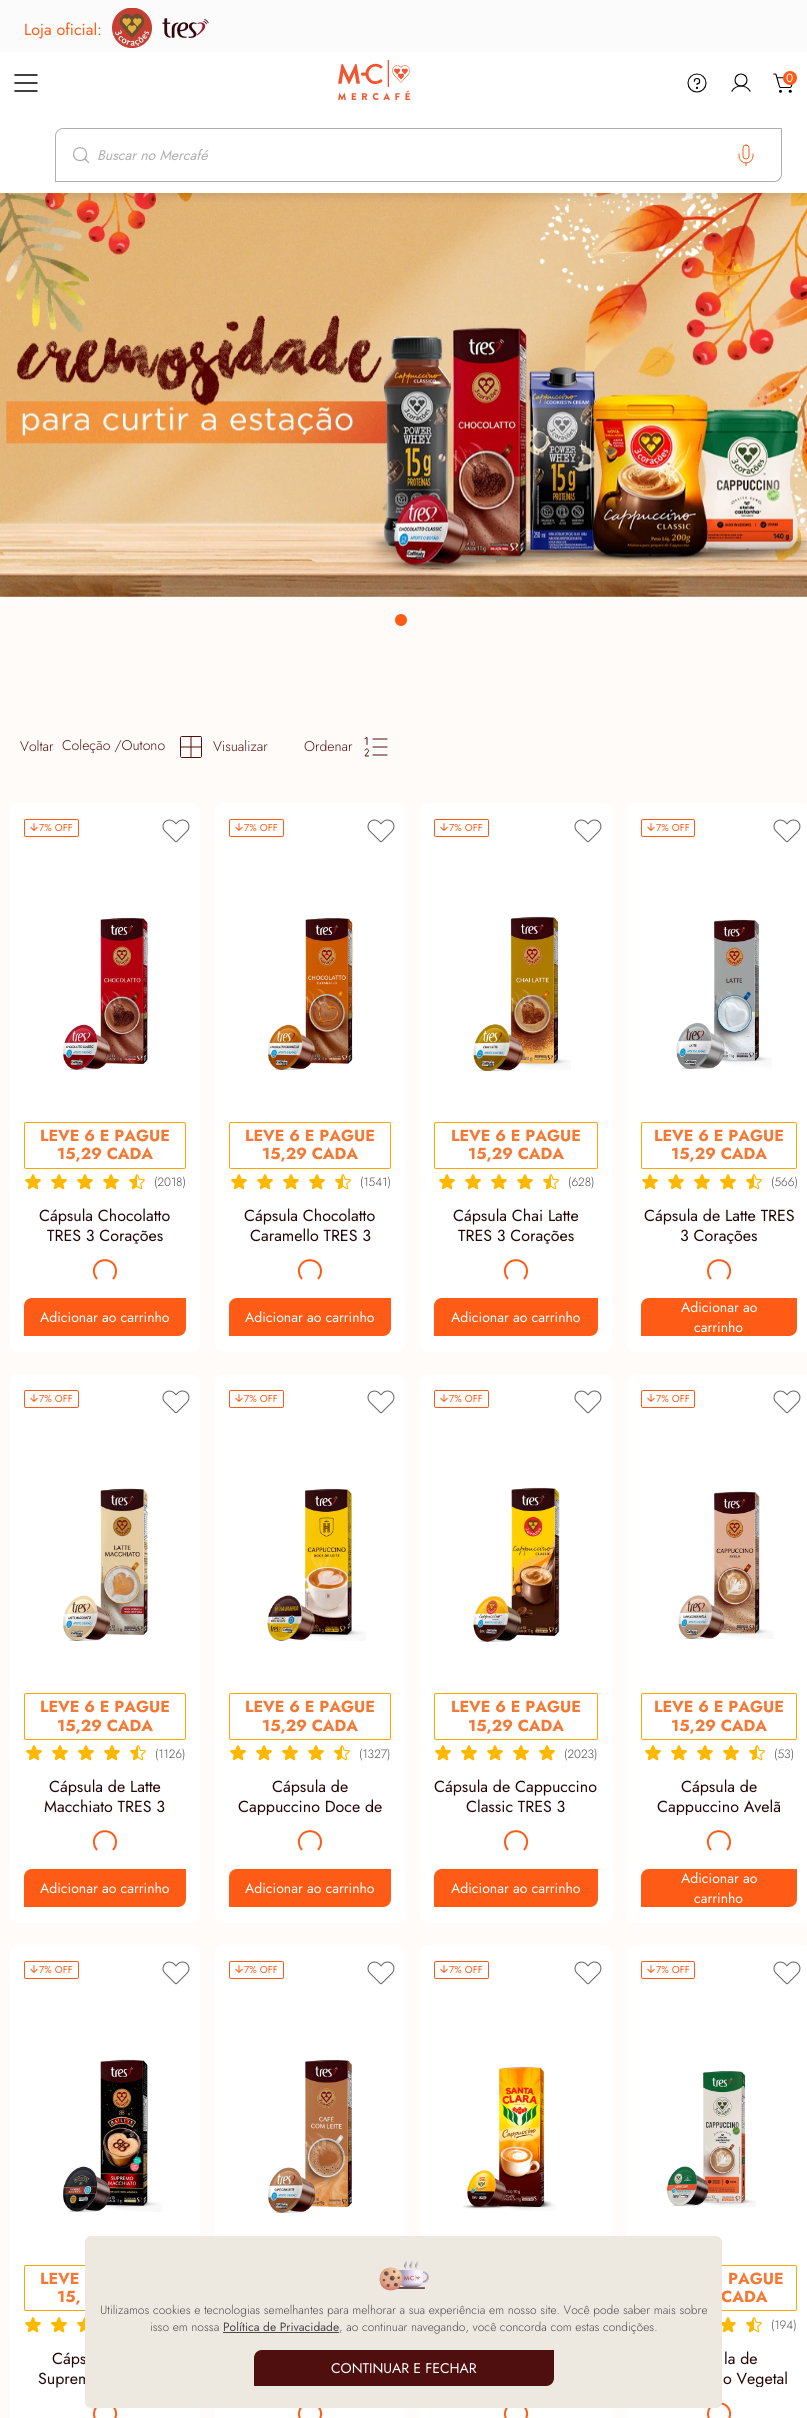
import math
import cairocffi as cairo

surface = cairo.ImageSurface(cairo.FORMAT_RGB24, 807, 2418)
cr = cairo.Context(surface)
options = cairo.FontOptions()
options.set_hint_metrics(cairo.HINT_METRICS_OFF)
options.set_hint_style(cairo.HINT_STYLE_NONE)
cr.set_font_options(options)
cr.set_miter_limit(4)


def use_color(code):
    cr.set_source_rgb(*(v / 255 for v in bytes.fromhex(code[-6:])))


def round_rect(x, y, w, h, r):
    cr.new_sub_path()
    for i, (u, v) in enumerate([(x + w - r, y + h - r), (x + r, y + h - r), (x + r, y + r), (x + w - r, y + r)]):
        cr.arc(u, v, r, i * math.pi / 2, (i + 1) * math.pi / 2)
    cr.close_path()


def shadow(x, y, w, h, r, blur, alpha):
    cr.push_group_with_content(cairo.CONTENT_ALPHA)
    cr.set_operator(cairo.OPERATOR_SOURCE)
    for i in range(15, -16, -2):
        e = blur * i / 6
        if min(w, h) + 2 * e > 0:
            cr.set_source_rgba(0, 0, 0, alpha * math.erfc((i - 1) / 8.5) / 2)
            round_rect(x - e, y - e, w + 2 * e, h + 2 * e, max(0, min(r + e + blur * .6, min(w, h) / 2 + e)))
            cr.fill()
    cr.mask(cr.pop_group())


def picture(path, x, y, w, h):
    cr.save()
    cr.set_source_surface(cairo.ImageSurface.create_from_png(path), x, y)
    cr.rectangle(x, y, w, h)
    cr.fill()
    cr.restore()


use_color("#fffbf9")
cr.paint()
picture("img10.png", 0, 193, 807, 404)
use_color("#000000")
shadow(0, 4, 807, 193, 0, 4, 0.1)
use_color("#ffffff")
cr.rectangle(0, 52, 807, 141)
cr.fill()
use_color("#fbfbfb")
cr.rectangle(0, 0, 807, 52)
cr.fill()
cr.select_font_face("Jost")
cr.set_font_size(16)
use_color("#fe5c16")
cr.move_to(24, 35)
cr.show_text("Loja oficial:")
picture("img1.png", 112, 8, 40, 40)
picture("img2.png", 162, 18, 47, 20)
picture("img3.png", 14, 74, 24, 18)
picture("img4.png", 338, 60, 72, 40)
picture("img5.png", 687, 73, 20, 20)
picture("img6.png", 731, 73, 20, 19)
picture("img7.png", 773, 73, 20, 20)
cr.arc(790, 78, 7, 0, 2 * math.pi)
cr.fill()
cr.set_font_size(12)
use_color("#ffffff")
cr.move_to(786, 82)
cr.show_text("0")
cr.new_path()
cr.move_to(63, 128.5)
cr.line_to(781.5, 128.5)
cr.line_to(781.5, 174)
cr.curve_to(781.5, 178, 778, 181.5, 774, 181.5)
cr.line_to(55.5, 181.5)
cr.line_to(55.5, 136)
cr.curve_to(55.5, 132, 59, 128.5, 63, 128.5)
cr.close_path()
use_color("#afafaf")
cr.set_line_width(1)
cr.stroke()
picture("img8.png", 73, 147, 17, 17)
cr.select_font_face("Jost", cairo.FONT_SLANT_ITALIC)
cr.set_font_size(14)
cr.move_to(97, 160)
cr.show_text("Buscar no Mercafé")
picture("img9.png", 738, 144, 16, 22)
use_color("#fe5c16")
cr.arc(401, 620, 6, 0, 2 * math.pi)
cr.fill()
cr.select_font_face("Jost Light")
use_color("#500f0f")
cr.move_to(20, 751)
cr.show_text("Voltar")
cr.move_to(62, 750)
cr.show_text("Coleção /Outono")
picture("img11.png", 180, 736, 22, 22)
cr.move_to(213, 751)
cr.show_text("Visualizar")
cr.move_to(304, 751)
cr.show_text("Ordenar")
picture("img12.png", 364, 737, 24, 20)
use_color("#ffffff")
round_rect(10, 803, 190, 549, 8)
cr.fill()
round_rect(24.5, 819.5, 54, 17, 1.5)
use_color("#fe5c16")
cr.stroke()
picture("img13.png", 30, 823, 8, 8)
cr.select_font_face("Jost")
cr.set_font_size(10)
cr.move_to(39, 831)
cr.show_text("7% OFF")
picture("img14.png", 162, 819, 28, 24)
picture("img15.png", 63, 917, 85, 153)
round_rect(24.5, 1122.5, 161, 46, 1.5)
use_color("#ffa500")
cr.stroke()
cr.select_font_face("Jost", cairo.FONT_SLANT_NORMAL, cairo.FONT_WEIGHT_BOLD)
cr.set_font_size(16)
use_color("#f37934")
cr.move_to(40, 1141)
cr.show_text("LEVE 6 E PAGUE")
cr.move_to(57, 1159)
cr.show_text("15,29 CADA")
picture("img16.png", 25, 1174, 16, 16)
picture("img16.png", 51, 1174, 16, 16)
picture("img16.png", 77, 1174, 16, 16)
picture("img16.png", 103, 1174, 16, 16)
picture("img17.png", 129, 1174, 16, 16)
cr.select_font_face("Jost Light")
cr.set_font_size(12)
use_color("#494949")
cr.move_to(154, 1186)
cr.show_text("(2018)")
cr.select_font_face("Jost")
cr.set_font_size(16)
use_color("#250707")
cr.move_to(39, 1221)
cr.show_text("Cápsula Chocolatto")
cr.save()
cr.rectangle(24, 1206, 162, 38)
cr.clip()
cr.move_to(47, 1241)
cr.show_text("TRES 3 Corações")
cr.restore()
cr.new_path()
cr.move_to(97, 1279)
cr.curve_to(94.5, 1276, 93.5, 1272.5, 94, 1269)
cr.curve_to(97, 1256, 116, 1258, 116, 1271)
cr.curve_to(116, 1274, 115, 1276.5, 113, 1279)
use_color("#fe5c16")
cr.set_line_width(2)
cr.stroke()
cr.new_path()
cr.move_to(32, 1298)
cr.line_to(186, 1298)
cr.line_to(186, 1328)
cr.curve_to(186, 1332.5, 182.5, 1336, 178, 1336)
cr.line_to(24, 1336)
cr.line_to(24, 1306)
cr.curve_to(24, 1301.5, 27.5, 1298, 32, 1298)
cr.close_path()
cr.fill()
cr.set_font_size(14)
use_color("#ffffff")
cr.move_to(40, 1322)
cr.show_text("Adicionar ao carrinho")
round_rect(215, 803, 190, 549, 8)
cr.fill()
round_rect(229.5, 819.5, 54, 17, 1.5)
use_color("#fe5c16")
cr.set_line_width(1)
cr.stroke()
picture("img13.png", 235, 823, 8, 8)
cr.set_font_size(10)
cr.move_to(244, 831)
cr.show_text("7% OFF")
picture("img14.png", 367, 819, 28, 24)
picture("img18.png", 268, 918, 85, 152)
round_rect(229.5, 1122.5, 161, 46, 1.5)
use_color("#ffa500")
cr.stroke()
cr.select_font_face("Jost", cairo.FONT_SLANT_NORMAL, cairo.FONT_WEIGHT_BOLD)
cr.set_font_size(16)
use_color("#f37934")
cr.move_to(245, 1141)
cr.show_text("LEVE 6 E PAGUE")
cr.move_to(262, 1159)
cr.show_text("15,29 CADA")
picture("img16.png", 231, 1174, 16, 16)
picture("img16.png", 257, 1174, 16, 16)
picture("img16.png", 283, 1174, 16, 16)
picture("img16.png", 309, 1174, 16, 16)
picture("img17.png", 335, 1174, 16, 16)
cr.select_font_face("Jost Light")
cr.set_font_size(12)
use_color("#494949")
cr.move_to(360, 1186)
cr.show_text("(1541)")
cr.select_font_face("Jost")
cr.set_font_size(16)
use_color("#250707")
cr.move_to(244, 1221)
cr.show_text("Cápsula Chocolatto")
cr.move_to(250, 1241)
cr.show_text("Caramello TRES 3")
cr.new_path()
cr.move_to(302, 1279)
cr.curve_to(299.5, 1276, 298.5, 1272.5, 299, 1269)
cr.curve_to(302, 1256, 321, 1258, 321, 1271)
cr.curve_to(321, 1274, 320, 1276.5, 318, 1279)
use_color("#fe5c16")
cr.set_line_width(2)
cr.stroke()
cr.new_path()
cr.move_to(237, 1298)
cr.line_to(391, 1298)
cr.line_to(391, 1328)
cr.curve_to(391, 1332.5, 387.5, 1336, 383, 1336)
cr.line_to(229, 1336)
cr.line_to(229, 1306)
cr.curve_to(229, 1301.5, 232.5, 1298, 237, 1298)
cr.close_path()
cr.fill()
cr.set_font_size(14)
use_color("#ffffff")
cr.move_to(245, 1322)
cr.show_text("Adicionar ao carrinho")
round_rect(420, 803, 192, 549, 8)
cr.fill()
round_rect(434.5, 819.5, 54, 17, 1.5)
use_color("#fe5c16")
cr.set_line_width(1)
cr.stroke()
picture("img13.png", 440, 823, 8, 8)
cr.set_font_size(10)
cr.move_to(449, 831)
cr.show_text("7% OFF")
picture("img14.png", 574, 819, 28, 24)
picture("img19.png", 473, 916, 98, 155)
round_rect(434.5, 1122.5, 163, 46, 1.5)
use_color("#ffa500")
cr.stroke()
cr.select_font_face("Jost", cairo.FONT_SLANT_NORMAL, cairo.FONT_WEIGHT_BOLD)
cr.set_font_size(16)
use_color("#f37934")
cr.move_to(451, 1141)
cr.show_text("LEVE 6 E PAGUE")
cr.move_to(468, 1159)
cr.show_text("15,29 CADA")
picture("img16.png", 439, 1174, 16, 16)
picture("img16.png", 465, 1174, 16, 16)
picture("img16.png", 491, 1174, 16, 16)
picture("img16.png", 517, 1174, 16, 16)
picture("img17.png", 543, 1174, 16, 16)
cr.select_font_face("Jost Light")
cr.set_font_size(12)
use_color("#494949")
cr.move_to(568, 1186)
cr.show_text("(628)")
cr.select_font_face("Jost")
cr.set_font_size(16)
use_color("#250707")
cr.move_to(453, 1221)
cr.show_text("Cápsula Chai Latte")
cr.save()
cr.rectangle(434, 1206, 164, 38)
cr.clip()
cr.move_to(458, 1241)
cr.show_text("TRES 3 Corações")
cr.restore()
cr.new_path()
cr.move_to(508, 1279)
cr.curve_to(505.5, 1276, 504.5, 1272.5, 505, 1269)
cr.curve_to(508, 1256, 527, 1258, 527, 1271)
cr.curve_to(527, 1274, 526, 1276.5, 524, 1279)
use_color("#fe5c16")
cr.set_line_width(2)
cr.stroke()
cr.new_path()
cr.move_to(442, 1298)
cr.line_to(598, 1298)
cr.line_to(598, 1328)
cr.curve_to(598, 1332.5, 594.5, 1336, 590, 1336)
cr.line_to(434, 1336)
cr.line_to(434, 1306)
cr.curve_to(434, 1301.5, 437.5, 1298, 442, 1298)
cr.close_path()
cr.fill()
cr.set_font_size(14)
use_color("#ffffff")
cr.move_to(451, 1322)
cr.show_text("Adicionar ao carrinho")
round_rect(627, 803, 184, 549, 8)
cr.fill()
round_rect(641.5, 819.5, 53, 17, 1.5)
use_color("#fe5c16")
cr.set_line_width(1)
cr.stroke()
picture("img13.png", 647, 823, 8, 8)
cr.set_font_size(10)
cr.move_to(656, 831)
cr.show_text("7% OFF")
picture("img14.png", 773, 819, 28, 24)
picture("img20.png", 676, 919, 96, 150)
round_rect(641.5, 1122.5, 155, 46, 1.5)
use_color("#ffa500")
cr.stroke()
cr.select_font_face("Jost", cairo.FONT_SLANT_NORMAL, cairo.FONT_WEIGHT_BOLD)
cr.set_font_size(16)
use_color("#f37934")
cr.move_to(654, 1141)
cr.show_text("LEVE 6 E PAGUE")
cr.move_to(671, 1159)
cr.show_text("15,29 CADA")
picture("img16.png", 642, 1174, 16, 16)
picture("img16.png", 668, 1174, 16, 16)
picture("img16.png", 694, 1174, 16, 16)
picture("img16.png", 720, 1174, 16, 16)
picture("img17.png", 746, 1174, 16, 16)
cr.select_font_face("Jost Light")
cr.set_font_size(12)
use_color("#494949")
cr.move_to(771, 1186)
cr.show_text("(566)")
cr.select_font_face("Jost")
cr.set_font_size(16)
use_color("#250707")
cr.move_to(644, 1221)
cr.show_text("Cápsula de Latte TRES")
cr.save()
cr.rectangle(641, 1206, 156, 38)
cr.clip()
cr.move_to(680, 1241)
cr.show_text("3 Corações")
cr.restore()
cr.new_path()
cr.move_to(711, 1279)
cr.curve_to(709, 1276.5, 708, 1274, 708, 1271)
cr.curve_to(708, 1258, 727, 1256, 730, 1269)
cr.curve_to(730.5, 1272.5, 729.5, 1276, 727, 1279)
use_color("#fe5c16")
cr.set_line_width(2)
cr.stroke()
cr.new_path()
cr.move_to(649, 1298)
cr.line_to(797, 1298)
cr.line_to(797, 1328)
cr.curve_to(797, 1332.5, 793.5, 1336, 789, 1336)
cr.line_to(641, 1336)
cr.line_to(641, 1306)
cr.curve_to(641, 1301.5, 644.5, 1298, 649, 1298)
cr.close_path()
cr.fill()
cr.set_font_size(14)
use_color("#ffffff")
cr.move_to(681, 1312)
cr.show_text("Adicionar ao")
cr.move_to(694, 1332)
cr.show_text("carrinho")
round_rect(10, 1374, 190, 549, 8)
cr.fill()
round_rect(24.5, 1390.5, 54, 17, 1.5)
use_color("#fe5c16")
cr.set_line_width(1)
cr.stroke()
picture("img13.png", 30, 1394, 8, 8)
cr.set_font_size(10)
cr.move_to(39, 1402)
cr.show_text("7% OFF")
picture("img14.png", 162, 1390, 28, 24)
picture("img21.png", 63, 1488, 85, 153)
round_rect(24.5, 1693.5, 161, 46, 1.5)
use_color("#ffa500")
cr.stroke()
cr.select_font_face("Jost", cairo.FONT_SLANT_NORMAL, cairo.FONT_WEIGHT_BOLD)
cr.set_font_size(16)
use_color("#f37934")
cr.move_to(40, 1712)
cr.show_text("LEVE 6 E PAGUE")
cr.move_to(57, 1731)
cr.show_text("15,29 CADA")
picture("img16.png", 26, 1745, 16, 16)
picture("img16.png", 52, 1745, 16, 16)
picture("img16.png", 78, 1745, 16, 16)
picture("img16.png", 104, 1745, 16, 16)
picture("img17.png", 130, 1745, 16, 16)
cr.select_font_face("Jost Light")
cr.set_font_size(12)
use_color("#494949")
cr.move_to(155, 1758)
cr.show_text("(1126)")
cr.select_font_face("Jost")
cr.set_font_size(16)
use_color("#250707")
cr.move_to(49, 1792)
cr.show_text("Cápsula de Latte")
cr.move_to(44, 1812)
cr.show_text("Macchiato TRES 3")
cr.new_path()
cr.move_to(97, 1850)
cr.curve_to(94.5, 1847, 93.5, 1843.5, 94, 1840)
cr.curve_to(97, 1827, 116, 1829, 116, 1842)
cr.curve_to(116, 1845, 115, 1847.5, 113, 1850)
use_color("#fe5c16")
cr.set_line_width(2)
cr.stroke()
cr.new_path()
cr.move_to(32, 1869)
cr.line_to(186, 1869)
cr.line_to(186, 1899)
cr.curve_to(186, 1903.5, 182.5, 1907, 178, 1907)
cr.line_to(24, 1907)
cr.line_to(24, 1877)
cr.curve_to(24, 1872.5, 27.5, 1869, 32, 1869)
cr.close_path()
cr.fill()
cr.set_font_size(14)
use_color("#ffffff")
cr.move_to(40, 1893)
cr.show_text("Adicionar ao carrinho")
round_rect(215, 1374, 190, 549, 8)
cr.fill()
round_rect(229.5, 1390.5, 54, 17, 1.5)
use_color("#fe5c16")
cr.set_line_width(1)
cr.stroke()
picture("img13.png", 235, 1394, 8, 8)
cr.set_font_size(10)
cr.move_to(244, 1402)
cr.show_text("7% OFF")
picture("img14.png", 367, 1390, 28, 24)
picture("img22.png", 267, 1488, 99, 153)
round_rect(229.5, 1693.5, 161, 46, 1.5)
use_color("#ffa500")
cr.stroke()
cr.select_font_face("Jost", cairo.FONT_SLANT_NORMAL, cairo.FONT_WEIGHT_BOLD)
cr.set_font_size(16)
use_color("#f37934")
cr.move_to(245, 1712)
cr.show_text("LEVE 6 E PAGUE")
cr.move_to(262, 1731)
cr.show_text("15,29 CADA")
picture("img16.png", 230, 1745, 16, 16)
picture("img16.png", 256, 1745, 16, 16)
picture("img16.png", 282, 1745, 16, 16)
picture("img16.png", 308, 1745, 16, 16)
picture("img17.png", 334, 1745, 16, 16)
cr.select_font_face("Jost Light")
cr.set_font_size(12)
use_color("#494949")
cr.move_to(359, 1758)
cr.show_text("(1327)")
cr.select_font_face("Jost")
cr.set_font_size(16)
use_color("#250707")
cr.move_to(272, 1792)
cr.show_text("Cápsula de")
cr.save()
cr.rectangle(229, 1777, 162, 38)
cr.clip()
cr.move_to(238, 1812)
cr.show_text("Cappuccino Doce de")
cr.restore()
cr.new_path()
cr.move_to(302, 1850)
cr.curve_to(299.5, 1847, 298.5, 1843.5, 299, 1840)
cr.curve_to(302, 1827, 321, 1829, 321, 1842)
cr.curve_to(321, 1845, 320, 1847.5, 318, 1850)
use_color("#fe5c16")
cr.set_line_width(2)
cr.stroke()
cr.new_path()
cr.move_to(237, 1869)
cr.line_to(391, 1869)
cr.line_to(391, 1899)
cr.curve_to(391, 1903.5, 387.5, 1907, 383, 1907)
cr.line_to(229, 1907)
cr.line_to(229, 1877)
cr.curve_to(229, 1872.5, 232.5, 1869, 237, 1869)
cr.close_path()
cr.fill()
cr.set_font_size(14)
use_color("#ffffff")
cr.move_to(245, 1893)
cr.show_text("Adicionar ao carrinho")
round_rect(420, 1374, 192, 549, 8)
cr.fill()
round_rect(434.5, 1390.5, 54, 17, 1.5)
use_color("#fe5c16")
cr.set_line_width(1)
cr.stroke()
picture("img13.png", 440, 1394, 8, 8)
cr.set_font_size(10)
cr.move_to(449, 1402)
cr.show_text("7% OFF")
picture("img14.png", 574, 1390, 28, 24)
picture("img23.png", 473, 1487, 87, 155)
round_rect(434.5, 1693.5, 163, 46, 1.5)
use_color("#ffa500")
cr.stroke()
cr.select_font_face("Jost", cairo.FONT_SLANT_NORMAL, cairo.FONT_WEIGHT_BOLD)
cr.set_font_size(16)
use_color("#f37934")
cr.move_to(451, 1712)
cr.show_text("LEVE 6 E PAGUE")
cr.move_to(468, 1731)
cr.show_text("15,29 CADA")
picture("img16.png", 435, 1745, 16, 16)
picture("img16.png", 461, 1745, 16, 16)
picture("img16.png", 487, 1745, 16, 16)
picture("img16.png", 513, 1745, 16, 16)
picture("img16.png", 539, 1745, 16, 16)
cr.select_font_face("Jost Light")
cr.set_font_size(12)
use_color("#494949")
cr.move_to(564, 1758)
cr.show_text("(2023)")
cr.select_font_face("Jost")
cr.set_font_size(16)
use_color("#250707")
cr.move_to(434, 1792)
cr.show_text("Cápsula de Cappuccino")
cr.move_to(466, 1812)
cr.show_text("Classic TRES 3")
cr.new_path()
cr.move_to(508, 1850)
cr.curve_to(506, 1847.5, 505, 1845, 505, 1842)
cr.curve_to(505, 1829, 524, 1827, 527, 1840)
cr.curve_to(527.5, 1843.5, 526.5, 1847, 524, 1850)
use_color("#fe5c16")
cr.set_line_width(2)
cr.stroke()
cr.new_path()
cr.move_to(442, 1869)
cr.line_to(598, 1869)
cr.line_to(598, 1899)
cr.curve_to(598, 1903.5, 594.5, 1907, 590, 1907)
cr.line_to(434, 1907)
cr.line_to(434, 1877)
cr.curve_to(434, 1872.5, 437.5, 1869, 442, 1869)
cr.close_path()
cr.fill()
cr.set_font_size(14)
use_color("#ffffff")
cr.move_to(451, 1893)
cr.show_text("Adicionar ao carrinho")
round_rect(627, 1374, 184, 549, 8)
cr.fill()
round_rect(641.5, 1390.5, 53, 17, 1.5)
use_color("#fe5c16")
cr.set_line_width(1)
cr.stroke()
picture("img13.png", 647, 1394, 8, 8)
cr.set_font_size(10)
cr.move_to(656, 1402)
cr.show_text("7% OFF")
picture("img14.png", 773, 1390, 28, 24)
picture("img24.png", 678, 1491, 96, 148)
round_rect(641.5, 1693.5, 155, 46, 1.5)
use_color("#ffa500")
cr.stroke()
cr.select_font_face("Jost", cairo.FONT_SLANT_NORMAL, cairo.FONT_WEIGHT_BOLD)
cr.set_font_size(16)
use_color("#f37934")
cr.move_to(654, 1712)
cr.show_text("LEVE 6 E PAGUE")
cr.move_to(671, 1731)
cr.show_text("15,29 CADA")
picture("img16.png", 645, 1745, 16, 16)
picture("img16.png", 671, 1745, 16, 16)
picture("img16.png", 697, 1745, 16, 16)
picture("img16.png", 723, 1745, 16, 16)
picture("img17.png", 749, 1745, 16, 16)
cr.select_font_face("Jost Light")
cr.set_font_size(12)
use_color("#494949")
cr.move_to(774, 1758)
cr.show_text("(53)")
cr.select_font_face("Jost")
cr.set_font_size(16)
use_color("#250707")
cr.move_to(681, 1792)
cr.show_text("Cápsula de")
cr.save()
cr.rectangle(641, 1777, 156, 38)
cr.clip()
cr.move_to(657, 1812)
cr.show_text("Cappuccino Avelã")
cr.restore()
cr.new_path()
cr.move_to(711, 1850)
cr.curve_to(708.5, 1847, 707.5, 1843.5, 708, 1840)
cr.curve_to(711, 1827, 730, 1829, 730, 1842)
cr.curve_to(730, 1845, 729, 1847.5, 727, 1850)
use_color("#fe5c16")
cr.set_line_width(2)
cr.stroke()
cr.new_path()
cr.move_to(649, 1869)
cr.line_to(797, 1869)
cr.line_to(797, 1899)
cr.curve_to(797, 1903.5, 793.5, 1907, 789, 1907)
cr.line_to(641, 1907)
cr.line_to(641, 1877)
cr.curve_to(641, 1872.5, 644.5, 1869, 649, 1869)
cr.close_path()
cr.fill()
cr.set_font_size(14)
use_color("#ffffff")
cr.move_to(681, 1883)
cr.show_text("Adicionar ao")
cr.move_to(694, 1903)
cr.show_text("carrinho")
round_rect(10, 1945, 190, 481, 8)
cr.fill()
round_rect(24.5, 1961.5, 54, 17, 1.5)
use_color("#fe5c16")
cr.set_line_width(1)
cr.stroke()
picture("img13.png", 30, 1965, 8, 8)
cr.set_font_size(10)
cr.move_to(39, 1973)
cr.show_text("7% OFF")
picture("img14.png", 162, 1961, 28, 24)
picture("img25.png", 63, 2059, 100, 153)
round_rect(24.5, 2265.5, 161, 45, 1.5)
use_color("#ffa500")
cr.stroke()
cr.select_font_face("Jost", cairo.FONT_SLANT_NORMAL, cairo.FONT_WEIGHT_BOLD)
cr.set_font_size(16)
use_color("#f37934")
cr.move_to(40, 2284)
cr.show_text("LEVE")
cr.move_to(57, 2302)
cr.show_text("15,")
picture("img16.png", 25, 2317, 16, 16)
picture("img16.png", 51, 2317, 16, 16)
picture("img26.png", 77, 2317, 8, 16)
cr.select_font_face("Jost")
use_color("#250707")
cr.move_to(52, 2364)
cr.show_text("Cáps")
cr.move_to(38, 2384)
cr.show_text("Suprem")
cr.new_path()
cr.move_to(97, 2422)
cr.curve_to(95, 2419.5, 94, 2417, 94, 2414)
cr.curve_to(94, 2401, 113, 2399, 116, 2412)
cr.curve_to(116.5, 2415.5, 115.5, 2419, 113, 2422)
use_color("#fe5c16")
cr.set_line_width(2)
cr.stroke()
use_color("#ffffff")
round_rect(215, 1945, 190, 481, 8)
cr.fill()
round_rect(229.5, 1961.5, 54, 17, 1.5)
use_color("#fe5c16")
cr.set_line_width(1)
cr.stroke()
picture("img13.png", 235, 1965, 8, 8)
cr.set_font_size(10)
cr.move_to(244, 1973)
cr.show_text("7% OFF")
picture("img14.png", 367, 1961, 28, 24)
picture("img27.png", 268, 2059, 84, 154)
cr.new_path()
cr.move_to(302, 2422)
cr.curve_to(300, 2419.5, 299, 2417, 299, 2414)
cr.curve_to(299, 2401, 318, 2399, 321, 2412)
cr.curve_to(321.5, 2415.5, 320.5, 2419, 318, 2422)
cr.set_line_width(2)
cr.stroke()
use_color("#ffffff")
round_rect(420, 1945, 192, 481, 8)
cr.fill()
round_rect(434.5, 1961.5, 54, 17, 1.5)
use_color("#fe5c16")
cr.set_line_width(1)
cr.stroke()
picture("img13.png", 440, 1965, 8, 8)
cr.move_to(449, 1973)
cr.show_text("7% OFF")
picture("img14.png", 574, 1961, 28, 24)
picture("img28.png", 462, 2066, 94, 145)
cr.new_path()
cr.move_to(508, 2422)
cr.curve_to(506, 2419.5, 505, 2417, 505, 2414)
cr.curve_to(505, 2401, 524, 2399, 527, 2412)
cr.curve_to(527.5, 2415.5, 526.5, 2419, 524, 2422)
cr.set_line_width(2)
cr.stroke()
use_color("#ffffff")
round_rect(627, 1945, 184, 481, 8)
cr.fill()
round_rect(641.5, 1961.5, 53, 17, 1.5)
use_color("#fe5c16")
cr.set_line_width(1)
cr.stroke()
picture("img13.png", 647, 1965, 8, 8)
cr.move_to(656, 1973)
cr.show_text("7% OFF")
picture("img14.png", 773, 1961, 28, 24)
picture("img29.png", 666, 2071, 90, 136)
round_rect(641.5, 2265.5, 155, 45, 1.5)
use_color("#ffa500")
cr.stroke()
cr.select_font_face("Jost", cairo.FONT_SLANT_NORMAL, cairo.FONT_WEIGHT_BOLD)
cr.set_font_size(16)
use_color("#f37934")
cr.move_to(728, 2284)
cr.show_text("PAGUE")
cr.move_to(721, 2302)
cr.show_text("CADA")
picture("img30.png", 722, 2317, 14, 16)
picture("img17.png", 746, 2317, 16, 16)
cr.select_font_face("Jost Light")
cr.set_font_size(12)
use_color("#494949")
cr.move_to(771, 2329)
cr.show_text("(194)")
cr.select_font_face("Jost")
cr.set_font_size(16)
use_color("#250707")
cr.move_to(724, 2364)
cr.show_text("la de")
cr.save()
cr.rectangle(641, 2349, 156, 38)
cr.clip()
cr.move_to(723, 2384)
cr.show_text("o Vegetal")
cr.restore()
cr.new_path()
cr.move_to(711, 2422)
cr.curve_to(709, 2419.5, 708, 2417, 708, 2414)
cr.curve_to(708, 2401, 727, 2399, 730, 2412)
cr.curve_to(730.5, 2415.5, 729.5, 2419, 727, 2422)
use_color("#fe5c16")
cr.set_line_width(2)
cr.stroke()
use_color("#eee9e0")
round_rect(85, 2236, 637, 172, 6)
cr.fill()
picture("img31.png", 379, 2261, 50, 30)
cr.select_font_face("Jost Light")
cr.set_font_size(12)
use_color("#494949")
cr.move_to(100, 2314)
cr.show_text("Utilizamos cookies e tecnologias semelhantes para melhorar a sua experiência em nosso site. Você pode saber mais sobre")
cr.move_to(150, 2331)
cr.show_text("isso em nossa")
cr.select_font_face("Jost")
cr.move_to(223, 2331)
cr.show_text("Política de Privacidade")
cr.rectangle(223, 2332, 116, 1)
cr.fill()
cr.select_font_face("Jost Light")
cr.move_to(339, 2331)
cr.show_text(", ao continuar navegando, você concorda com estas condições.")
use_color("#500f0f")
cr.new_path()
cr.move_to(262, 2350)
cr.line_to(554, 2350)
cr.line_to(554, 2378)
cr.curve_to(554, 2382.5, 550.5, 2386, 546, 2386)
cr.line_to(254, 2386)
cr.line_to(254, 2358)
cr.curve_to(254, 2353.5, 257.5, 2350, 262, 2350)
cr.close_path()
cr.fill()
cr.select_font_face("Jost")
cr.set_font_size(14)
use_color("#ffffff")
cr.move_to(331, 2373)
cr.show_text("CONTINUAR E FECHAR")
surface.write_to_png("result.png")
